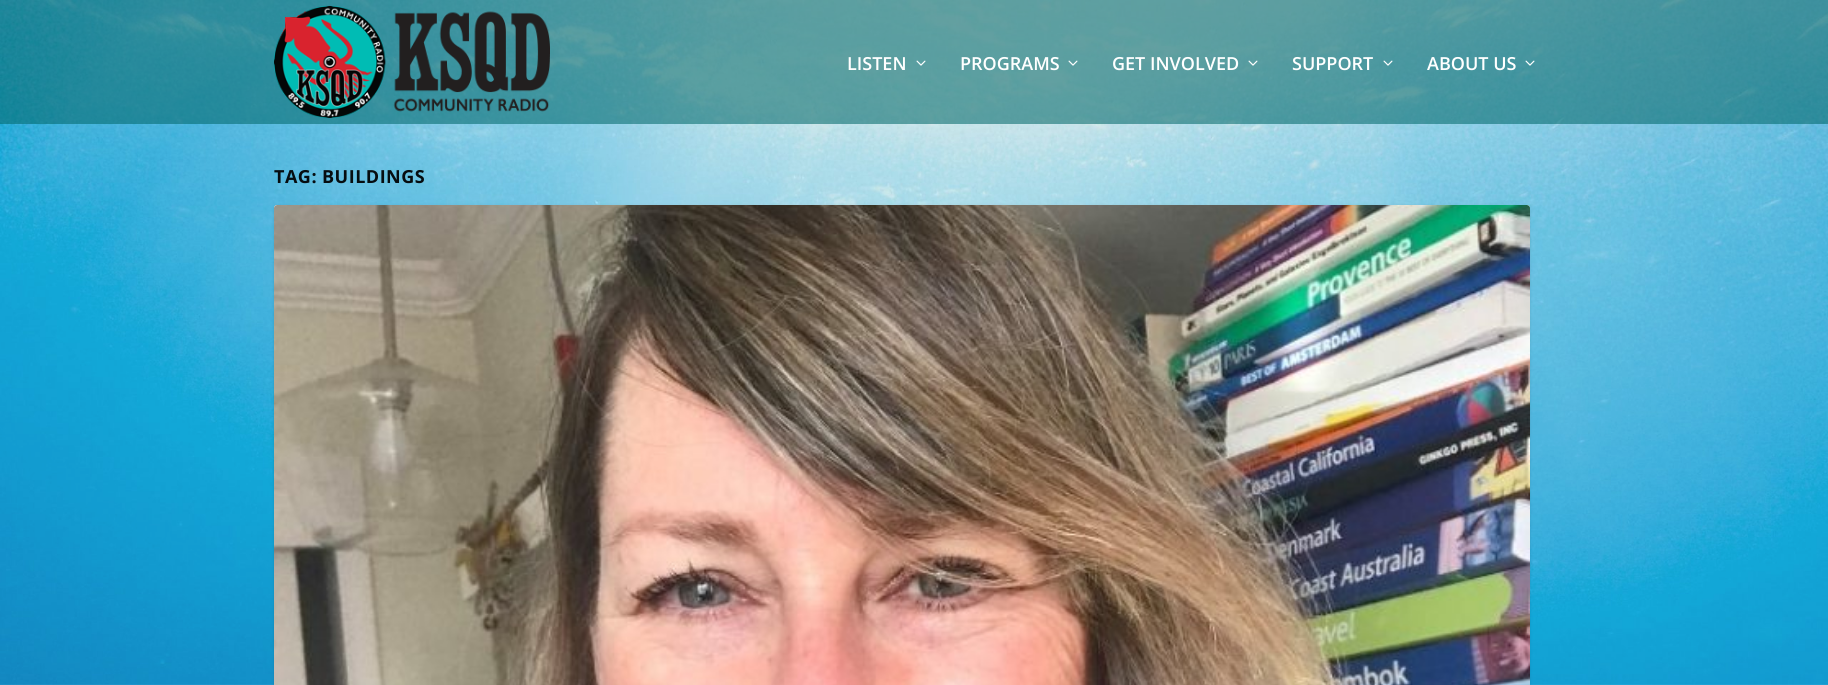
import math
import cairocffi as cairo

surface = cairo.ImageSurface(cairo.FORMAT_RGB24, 1828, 685)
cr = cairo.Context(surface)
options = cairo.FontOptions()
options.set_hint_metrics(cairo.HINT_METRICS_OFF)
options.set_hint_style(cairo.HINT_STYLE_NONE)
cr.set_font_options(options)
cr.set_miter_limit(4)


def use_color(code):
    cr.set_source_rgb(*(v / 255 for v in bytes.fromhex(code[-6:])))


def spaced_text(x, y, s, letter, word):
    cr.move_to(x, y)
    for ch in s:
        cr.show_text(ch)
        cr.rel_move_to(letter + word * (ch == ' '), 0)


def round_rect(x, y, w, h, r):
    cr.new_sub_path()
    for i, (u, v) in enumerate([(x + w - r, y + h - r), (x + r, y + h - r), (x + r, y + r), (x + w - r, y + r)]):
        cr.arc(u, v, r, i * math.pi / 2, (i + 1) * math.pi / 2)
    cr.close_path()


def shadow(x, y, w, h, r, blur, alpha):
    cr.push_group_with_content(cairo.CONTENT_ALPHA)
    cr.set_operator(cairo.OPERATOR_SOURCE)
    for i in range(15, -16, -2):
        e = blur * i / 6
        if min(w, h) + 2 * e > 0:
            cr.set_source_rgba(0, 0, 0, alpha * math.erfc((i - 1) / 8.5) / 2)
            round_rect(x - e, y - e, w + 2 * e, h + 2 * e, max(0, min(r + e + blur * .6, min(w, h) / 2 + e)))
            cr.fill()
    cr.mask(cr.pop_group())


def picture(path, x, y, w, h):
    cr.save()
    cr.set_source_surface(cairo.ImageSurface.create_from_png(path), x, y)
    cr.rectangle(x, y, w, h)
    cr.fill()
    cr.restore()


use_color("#ffffff")
cr.paint()
picture("img1.png", 0, 0, 1828, 685)
cr.set_source_rgba(0, 0.4, 0.408, 0.56)
cr.rectangle(0, 0, 1828, 124)
cr.fill()
picture("img2.png", 274, 6, 276, 112)
cr.select_font_face("Open Sans SemiBold")
cr.set_font_size(18)
use_color("#ffffff")
cr.move_to(847, 70)
cr.show_text("LISTEN")
picture("img3.png", 916, 60, 10, 6)
cr.move_to(960, 70)
cr.show_text("PROGRAMS")
picture("img4.png", 1068, 60, 10, 6)
cr.move_to(1112, 70)
cr.show_text("GET INVOLVED")
picture("img5.png", 1248, 60, 10, 6)
cr.move_to(1292, 70)
cr.show_text("SUPPORT")
picture("img6.png", 1383, 60, 10, 6)
cr.move_to(1427, 70)
cr.show_text("ABOUT US")
picture("img7.png", 1525, 60, 10, 6)
cr.select_font_face("Open Sans", cairo.FONT_SLANT_NORMAL, cairo.FONT_WEIGHT_BOLD)
use_color("#060d10")
spaced_text(274, 183, "TAG:", 0.5, 0)
spaced_text(322, 183, "BUILDINGS", 0.5, 0)
use_color("#000000")
shadow(274, 206, 1256, 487, 3, 1.5, 0.1)
use_color("#ffffff")
round_rect(274, 205, 1256, 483, 3)
cr.fill()
picture("img8.png", 274, 205, 1256, 480)
surface.write_to_png("result.png")
